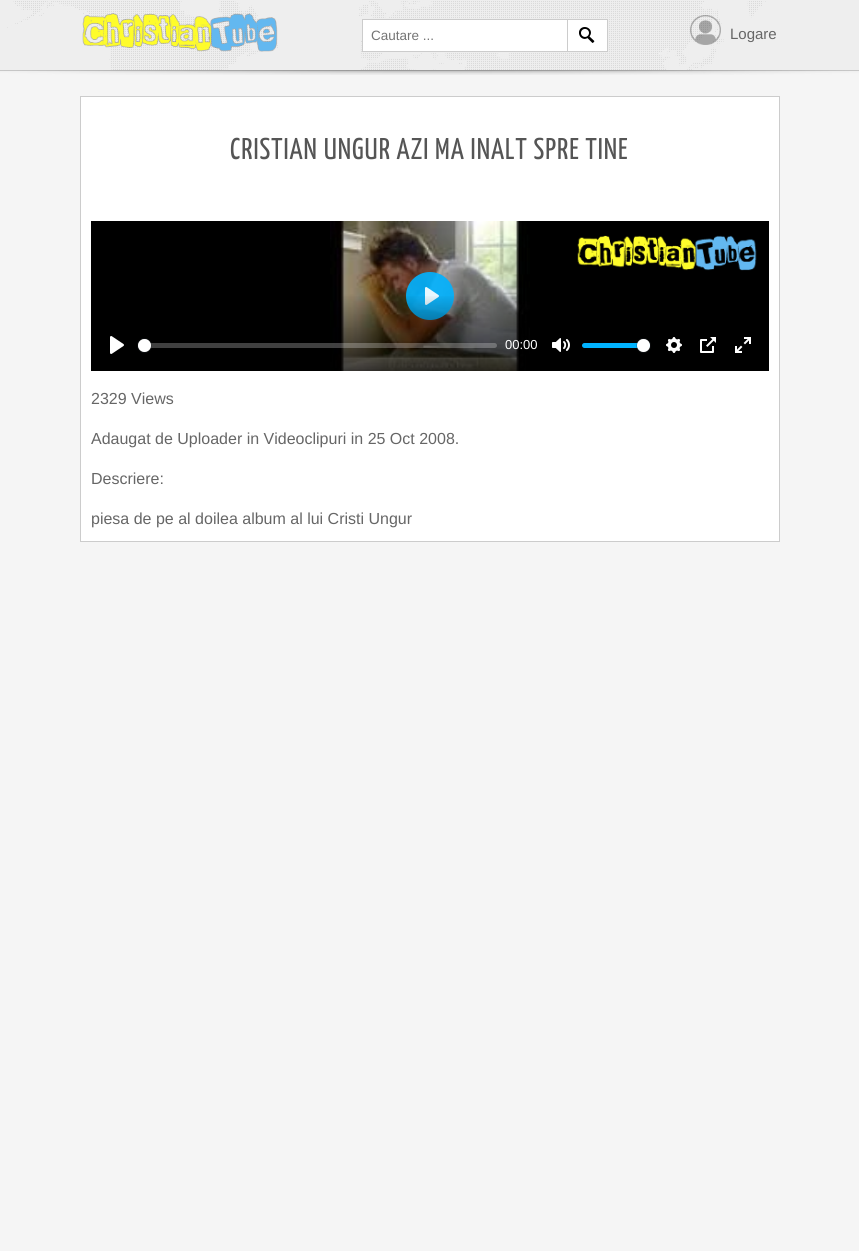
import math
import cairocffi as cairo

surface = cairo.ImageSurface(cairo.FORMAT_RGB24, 859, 1251)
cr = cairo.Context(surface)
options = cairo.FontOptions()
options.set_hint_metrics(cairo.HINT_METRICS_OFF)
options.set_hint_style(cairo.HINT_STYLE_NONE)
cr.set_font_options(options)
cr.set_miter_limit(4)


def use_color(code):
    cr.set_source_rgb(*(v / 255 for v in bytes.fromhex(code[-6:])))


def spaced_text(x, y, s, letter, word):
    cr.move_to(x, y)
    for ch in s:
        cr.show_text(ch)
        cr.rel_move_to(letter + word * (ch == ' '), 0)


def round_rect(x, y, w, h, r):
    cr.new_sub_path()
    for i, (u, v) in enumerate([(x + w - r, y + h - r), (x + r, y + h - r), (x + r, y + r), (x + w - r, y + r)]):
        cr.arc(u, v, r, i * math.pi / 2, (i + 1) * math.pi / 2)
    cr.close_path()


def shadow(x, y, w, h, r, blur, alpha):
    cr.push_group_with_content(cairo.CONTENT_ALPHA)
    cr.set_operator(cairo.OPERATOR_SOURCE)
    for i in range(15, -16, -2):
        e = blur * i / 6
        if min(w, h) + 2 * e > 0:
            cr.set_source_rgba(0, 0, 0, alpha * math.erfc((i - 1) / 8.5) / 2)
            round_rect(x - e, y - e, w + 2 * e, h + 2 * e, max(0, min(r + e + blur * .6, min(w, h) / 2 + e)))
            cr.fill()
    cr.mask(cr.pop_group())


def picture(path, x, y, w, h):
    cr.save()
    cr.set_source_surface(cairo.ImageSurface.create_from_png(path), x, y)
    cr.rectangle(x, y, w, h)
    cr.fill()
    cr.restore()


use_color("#f5f5f5")
cr.paint()
use_color("#eeeeee")
cr.rectangle(0, 0, 859, 70)
cr.fill()
use_color("#cccccc")
cr.rectangle(0, 70, 859, 1)
cr.fill()
picture("img1.png", 7, 1, 759, 69)
picture("img2.png", 82, 13, 196, 39)
use_color("#ffffff")
cr.rectangle(362.5, 19.5, 205, 32)
cr.fill_preserve()
use_color("#cccccc")
cr.set_line_width(1)
cr.stroke()
cr.select_font_face("Liberation Sans")
cr.set_font_size(13.5)
use_color("#757575")
cr.move_to(371, 40)
cr.show_text("Cautare ...")
use_color("#ffffff")
cr.rectangle(568, 20, 39, 31)
cr.fill()
picture("img3.png", 579, 27, 16, 16)
use_color("#cccccc")
cr.rectangle(568, 19, 40, 1)
cr.fill()
cr.rectangle(607, 19, 1, 33)
cr.fill()
cr.rectangle(568, 51, 40, 1)
cr.fill()
picture("img4.png", 690, 15, 31, 30)
cr.set_font_size(15)
use_color("#666666")
cr.move_to(730, 39)
cr.show_text("Logare")
picture("img5.png", 0, 70, 859, 5)
use_color("#ffffff")
cr.rectangle(80.5, 96.5, 699, 445)
cr.fill_preserve()
use_color("#cccccc")
cr.stroke()
cr.select_font_face("Yanone Kaffeesatz")
cr.set_font_size(30)
use_color("#555555")
spaced_text(230, 159, "CRISTIAN UNGUR AZI MA INALT SPRE TINE", 1, 0)
use_color("#000000")
cr.rectangle(91, 221, 678, 150)
cr.fill()
picture("img6.png", 137, 221, 514, 150)
picture("img7.png", 577, 235, 180, 36)
cr.set_source_rgba(0, 0.702, 1, 0.9)
cr.arc(430, 296, 24, 0, 2 * math.pi)
cr.fill()
picture("img8.png", 425, 287, 14, 18)
gradient = cairo.LinearGradient(430, 294, 430, 371)
gradient.add_color_stop_rgba(0, 0, 0, 0, 0)
gradient.add_color_stop_rgba(1, 0, 0, 0, 0.75)
cr.set_source(gradient)
cr.rectangle(137, 296, 514, 75)
cr.fill()
picture("img9.png", 110, 336, 14, 18)
cr.set_source_rgba(1, 1, 1, 0.25)
round_rect(138, 343, 359, 5, 2.5)
cr.fill()
cr.arc(144.5, 345.5, 7, 0, 2 * math.pi)
cr.set_source_rgba(0.137, 0.157, 0.184, 0.2)
cr.stroke()
use_color("#23282f")
shadow(138, 340, 13, 13, 6.5, 0.5, 0.15)
use_color("#ffffff")
cr.arc(144.5, 345.5, 6.5, 0, 2 * math.pi)
cr.fill()
cr.select_font_face("Liberation Sans")
cr.set_font_size(13)
cr.move_to(505, 349)
cr.show_text("00:00")
picture("img10.png", 552, 338, 18, 14)
use_color("#00b3ff")
round_rect(582, 343, 68, 5, 2.5)
cr.fill()
cr.arc(643.5, 345.5, 7, 0, 2 * math.pi)
cr.set_source_rgba(0.137, 0.157, 0.184, 0.2)
cr.stroke()
use_color("#23282f")
shadow(637, 340, 13, 13, 6.5, 0.5, 0.15)
use_color("#ffffff")
cr.arc(643.5, 345.5, 6.5, 0, 2 * math.pi)
cr.fill()
picture("img11.png", 666, 337, 16, 16)
picture("img12.png", 700, 337, 16, 16)
picture("img13.png", 735, 337, 16, 16)
cr.set_font_size(16)
use_color("#666666")
cr.move_to(91, 404)
cr.show_text("2329 Views")
cr.move_to(91, 444)
cr.show_text("Adaugat de Uploader in Videoclipuri in 25 Oct 2008.")
cr.move_to(91, 484)
cr.show_text("Descriere:")
cr.move_to(91, 524)
cr.show_text("piesa de pe al doilea album al lui Cristi Ungur")
surface.write_to_png("result.png")
